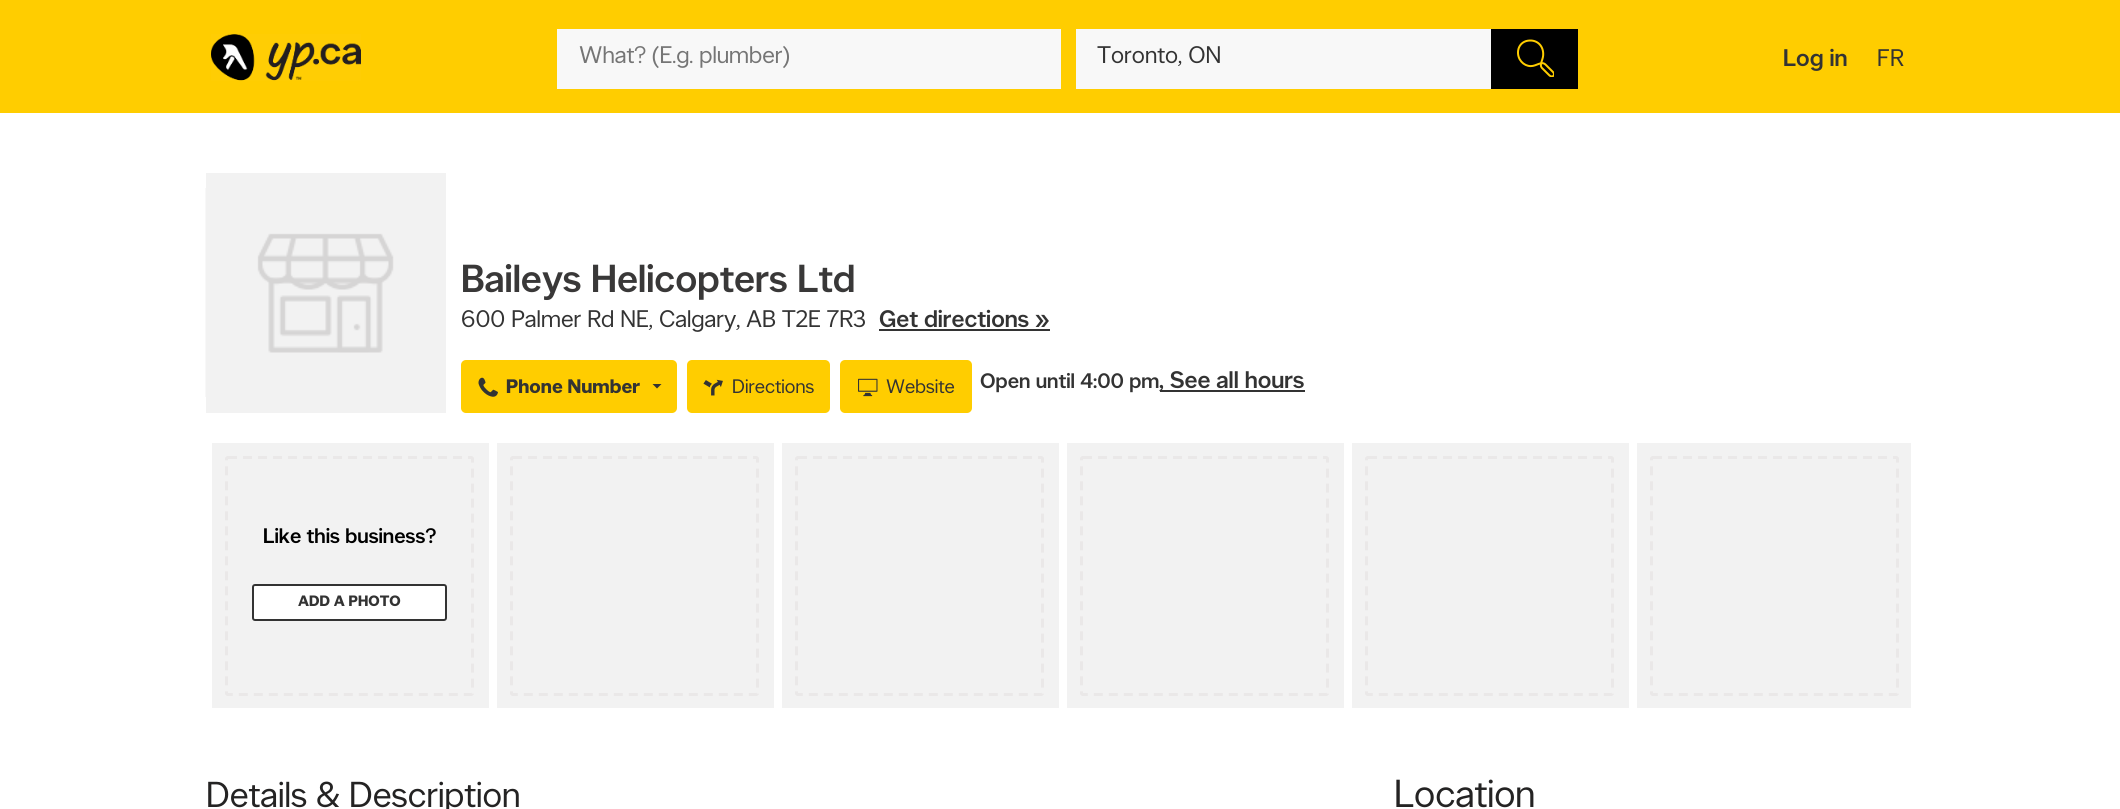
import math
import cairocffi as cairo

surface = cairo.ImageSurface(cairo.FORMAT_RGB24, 2120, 809)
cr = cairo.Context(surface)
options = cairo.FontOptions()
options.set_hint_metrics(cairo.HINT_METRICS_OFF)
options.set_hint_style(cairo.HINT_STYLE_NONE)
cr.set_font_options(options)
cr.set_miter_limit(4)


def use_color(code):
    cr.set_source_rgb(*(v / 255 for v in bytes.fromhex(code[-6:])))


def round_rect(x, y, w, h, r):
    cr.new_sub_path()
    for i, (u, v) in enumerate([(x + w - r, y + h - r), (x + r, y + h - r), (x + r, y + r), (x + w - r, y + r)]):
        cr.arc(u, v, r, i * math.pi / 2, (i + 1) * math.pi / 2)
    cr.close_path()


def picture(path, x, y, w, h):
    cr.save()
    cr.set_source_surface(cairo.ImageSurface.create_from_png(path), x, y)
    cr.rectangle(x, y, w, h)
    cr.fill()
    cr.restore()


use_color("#ffffff")
cr.paint()
use_color("#ffcd00")
cr.rectangle(0, 0, 2120, 113)
cr.fill()
picture("img1.png", 211, 34, 150, 47)
use_color("#f8f8f8")
cr.rectangle(557, 29, 504, 60)
cr.fill()
cr.select_font_face("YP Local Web")
cr.set_font_size(24)
use_color("#757575")
cr.move_to(579, 63)
cr.show_text("What? (E.g. plumber)")
use_color("#f8f8f8")
cr.rectangle(1076, 29, 415, 60)
cr.fill()
use_color("#333333")
cr.move_to(1097, 63)
cr.show_text("Toronto, ON")
use_color("#000000")
cr.rectangle(1491, 29, 87, 60)
cr.fill()
picture("img2.png", 1517, 39, 37, 38)
cr.select_font_face("YP Local Web Medium")
use_color("#333333")
cr.move_to(1783, 66)
cr.show_text("Log in")
cr.select_font_face("YP Local Web")
cr.move_to(1877, 66)
cr.show_text("FR")
use_color("#f2f2f2")
cr.rectangle(206, 173, 240, 240)
cr.fill()
picture("img3.png", 205, 188, 189, 209)
cr.select_font_face("YP Local Web Medium")
cr.set_font_size(39)
use_color("#393838")
cr.move_to(461, 292)
cr.show_text("Baileys Helicopters Ltd")
cr.select_font_face("YP Local Web")
cr.set_font_size(24)
use_color("#333333")
cr.move_to(461, 327)
cr.show_text("600 Palmer Rd NE, Calgary, AB T2E 7R3")
cr.select_font_face("YP Local Web Medium")
cr.move_to(879, 327)
cr.show_text("Get directions »")
cr.rectangle(879, 329, 171, 2)
cr.fill()
use_color("#ffcd00")
round_rect(461, 360, 216, 53, 5)
cr.fill()
picture("img4.png", 478, 377, 20, 20)
cr.select_font_face("YP Local Web", cairo.FONT_SLANT_NORMAL, cairo.FONT_WEIGHT_BOLD)
cr.set_font_size(19.5)
use_color("#333333")
cr.move_to(506, 393)
cr.show_text("Phone Number")
cr.new_path()
cr.move_to(652.5, 384)
cr.line_to(661.5, 384)
cr.line_to(657, 388.5)
cr.close_path()
cr.fill()
use_color("#ffcd00")
round_rect(687, 360, 143, 53, 5)
cr.fill()
picture("img5.png", 703, 379, 20, 17)
cr.select_font_face("YP Local Web")
use_color("#333333")
cr.move_to(732, 393)
cr.show_text("Directions")
use_color("#ffcd00")
round_rect(840, 360, 132, 53, 5)
cr.fill()
picture("img6.png", 858, 378, 20, 19)
use_color("#333333")
cr.move_to(886, 393)
cr.show_text("Website")
cr.select_font_face("YP Local Web Medium")
cr.set_font_size(21)
cr.move_to(980, 388)
cr.show_text("Open until 4:00 pm")
cr.rectangle(1160, 390, 145, 2)
cr.fill()
cr.set_font_size(24)
cr.move_to(1159, 388)
cr.show_text(", See all hours")
use_color("#f2f2f2")
cr.rectangle(212, 443, 277, 265)
cr.fill()
cr.new_path()
cr.move_to(228, 457.5)
cr.line_to(471, 457.5)
cr.curve_to(472, 457.5, 472.5, 458, 472.5, 459)
cr.line_to(472.5, 693)
cr.curve_to(472.5, 694, 472, 694.5, 471, 694.5)
cr.line_to(228, 694.5)
cr.curve_to(227, 694.5, 226.5, 694, 226.5, 693)
cr.line_to(226.5, 459)
cr.curve_to(226.5, 458, 227, 457.5, 228, 457.5)
cr.close_path()
use_color("#eae8e8")
cr.set_line_width(3)
cr.set_dash([9, 6])
cr.stroke()
cr.set_font_size(21)
use_color("#000000")
cr.move_to(263, 543)
cr.show_text("Like this business?")
use_color("#ffffff")
round_rect(253, 585, 193, 35, 2)
cr.fill_preserve()
use_color("#333333")
cr.set_line_width(2)
cr.set_dash([])
cr.stroke()
cr.select_font_face("YP Local Web", cairo.FONT_SLANT_NORMAL, cairo.FONT_WEIGHT_BOLD)
cr.set_font_size(15)
cr.move_to(298, 606)
cr.show_text("ADD A PHOTO")
use_color("#f2f2f2")
cr.rectangle(497, 443, 277, 265)
cr.fill()
cr.new_path()
cr.move_to(513, 457.5)
cr.line_to(756, 457.5)
cr.curve_to(757, 457.5, 757.5, 458, 757.5, 459)
cr.line_to(757.5, 693)
cr.curve_to(757.5, 694, 757, 694.5, 756, 694.5)
cr.line_to(513, 694.5)
cr.curve_to(512, 694.5, 511.5, 694, 511.5, 693)
cr.line_to(511.5, 459)
cr.curve_to(511.5, 458, 512, 457.5, 513, 457.5)
cr.close_path()
use_color("#eae8e8")
cr.set_line_width(3)
cr.set_dash([9, 6])
cr.stroke()
use_color("#f2f2f2")
cr.rectangle(782, 443, 277, 265)
cr.fill()
cr.new_path()
cr.move_to(798, 457.5)
cr.line_to(1041, 457.5)
cr.curve_to(1042, 457.5, 1042.5, 458, 1042.5, 459)
cr.line_to(1042.5, 693)
cr.curve_to(1042.5, 694, 1042, 694.5, 1041, 694.5)
cr.line_to(798, 694.5)
cr.curve_to(797, 694.5, 796.5, 694, 796.5, 693)
cr.line_to(796.5, 459)
cr.curve_to(796.5, 458, 797, 457.5, 798, 457.5)
cr.close_path()
use_color("#eae8e8")
cr.stroke()
use_color("#f2f2f2")
cr.rectangle(1067, 443, 277, 265)
cr.fill()
cr.new_path()
cr.move_to(1083, 457.5)
cr.line_to(1326, 457.5)
cr.curve_to(1327, 457.5, 1327.5, 458, 1327.5, 459)
cr.line_to(1327.5, 693)
cr.curve_to(1327.5, 694, 1327, 694.5, 1326, 694.5)
cr.line_to(1083, 694.5)
cr.curve_to(1082, 694.5, 1081.5, 694, 1081.5, 693)
cr.line_to(1081.5, 459)
cr.curve_to(1081.5, 458, 1082, 457.5, 1083, 457.5)
cr.close_path()
use_color("#eae8e8")
cr.stroke()
use_color("#f2f2f2")
cr.rectangle(1352, 443, 277, 265)
cr.fill()
cr.new_path()
cr.move_to(1368, 457.5)
cr.line_to(1611, 457.5)
cr.curve_to(1612, 457.5, 1612.5, 458, 1612.5, 459)
cr.line_to(1612.5, 693)
cr.curve_to(1612.5, 694, 1612, 694.5, 1611, 694.5)
cr.line_to(1368, 694.5)
cr.curve_to(1367, 694.5, 1366.5, 694, 1366.5, 693)
cr.line_to(1366.5, 459)
cr.curve_to(1366.5, 458, 1367, 457.5, 1368, 457.5)
cr.close_path()
use_color("#eae8e8")
cr.stroke()
use_color("#f2f2f2")
cr.rectangle(1637, 443, 274, 265)
cr.fill()
cr.new_path()
cr.move_to(1653, 457.5)
cr.line_to(1896, 457.5)
cr.curve_to(1897, 457.5, 1897.5, 458, 1897.5, 459)
cr.line_to(1897.5, 693)
cr.curve_to(1897.5, 694, 1897, 694.5, 1896, 694.5)
cr.line_to(1653, 694.5)
cr.curve_to(1652, 694.5, 1651.5, 694, 1651.5, 693)
cr.line_to(1651.5, 459)
cr.curve_to(1651.5, 458, 1652, 457.5, 1653, 457.5)
cr.close_path()
use_color("#eae8e8")
cr.stroke()
cr.select_font_face("YP Local Web")
cr.set_font_size(36)
use_color("#242323")
cr.move_to(206, 807)
cr.show_text("Details & Description")
cr.set_font_size(39)
cr.move_to(1394, 807)
cr.show_text("Location")
surface.write_to_png("result.png")
